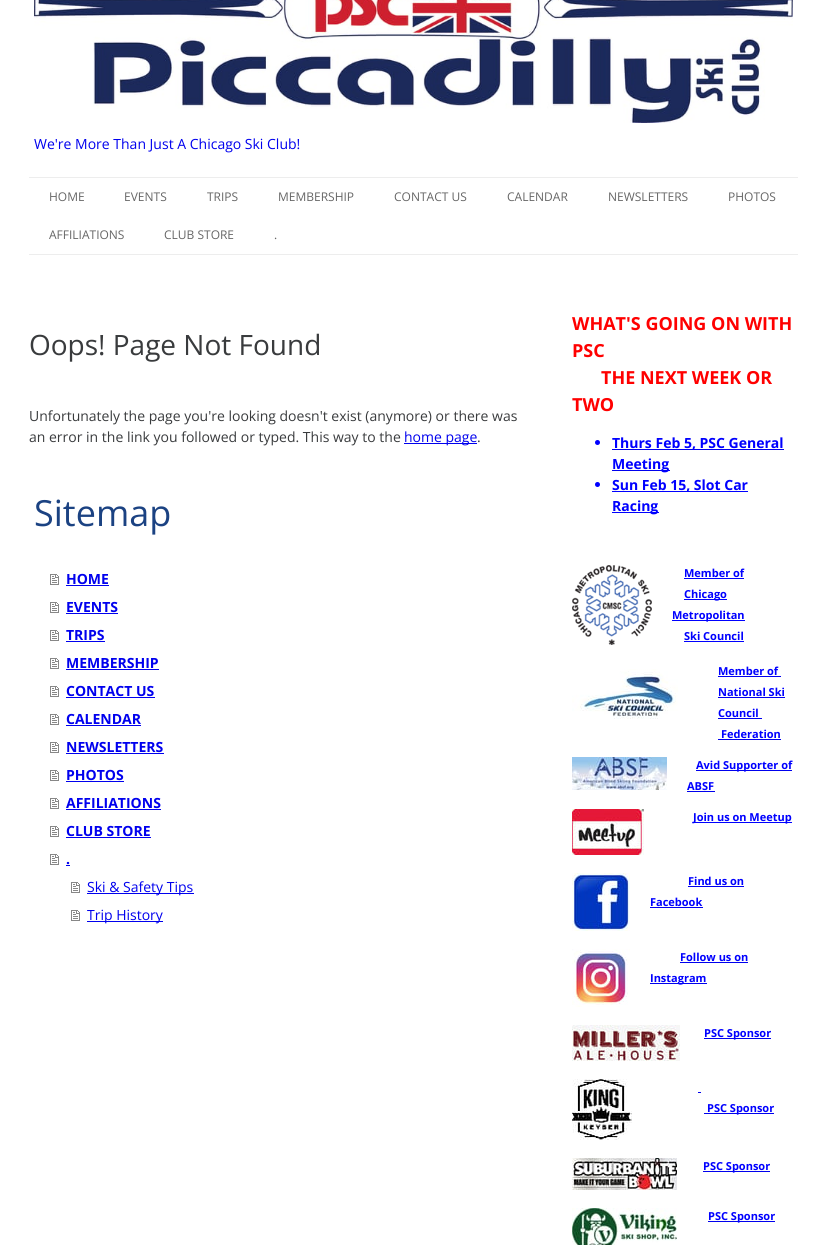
import math
import cairocffi as cairo

surface = cairo.ImageSurface(cairo.FORMAT_RGB24, 827, 1245)
cr = cairo.Context(surface)
options = cairo.FontOptions()
options.set_hint_metrics(cairo.HINT_METRICS_OFF)
options.set_hint_style(cairo.HINT_STYLE_NONE)
cr.set_font_options(options)
cr.set_miter_limit(4)


def use_color(code):
    cr.set_source_rgb(*(v / 255 for v in bytes.fromhex(code[-6:])))


def picture(path, x, y, w, h):
    cr.save()
    cr.set_source_surface(cairo.ImageSurface.create_from_png(path), x, y)
    cr.rectangle(x, y, w, h)
    cr.fill()
    cr.restore()


use_color("#ffffff")
cr.paint()
picture("img1.png", 34, 0, 759, 123)
cr.select_font_face("Open Sans")
cr.set_font_size(14)
use_color("#0000ee")
cr.move_to(34, 149)
cr.show_text("We're More Than Just A Chicago Ski Club!")
use_color("#ededed")
cr.rectangle(29, 177, 769, 1)
cr.fill()
cr.rectangle(29, 254, 769, 1)
cr.fill()
cr.set_font_size(12)
use_color("#666666")
cr.move_to(49, 201)
cr.show_text("HOME")
cr.move_to(124, 201)
cr.show_text("EVENTS")
cr.move_to(207, 201)
cr.show_text("TRIPS")
cr.move_to(278, 201)
cr.show_text("MEMBERSHIP")
cr.move_to(394, 201)
cr.show_text("CONTACT US")
cr.move_to(507, 201)
cr.show_text("CALENDAR")
cr.move_to(608, 201)
cr.show_text("NEWSLETTERS")
cr.move_to(728, 201)
cr.show_text("PHOTOS")
cr.move_to(49, 239)
cr.show_text("AFFILIATIONS")
cr.move_to(164, 239)
cr.show_text("CLUB STORE")
cr.move_to(274, 239)
cr.show_text(".")
cr.set_font_size(28)
use_color("#393b3d")
cr.move_to(29, 355)
cr.show_text("Oops! Page Not Found")
cr.set_font_size(14)
cr.move_to(29, 421)
cr.show_text("Unfortunately the page you're looking doesn't exist (anymore) or there was")
cr.move_to(29, 442)
cr.show_text("an error in the link you followed or typed. This way to the")
use_color("#0000ee")
cr.rectangle(404, 443, 73, 1)
cr.fill()
cr.move_to(404, 442)
cr.show_text("home page")
use_color("#393b3d")
cr.move_to(477, 442)
cr.show_text(".")
cr.set_font_size(36)
use_color("#1b4282")
cr.move_to(34, 526)
cr.show_text("Sitemap")
picture("img2.png", 50, 574, 9, 11)
cr.select_font_face("Open Sans", cairo.FONT_SLANT_NORMAL, cairo.FONT_WEIGHT_BOLD)
cr.set_font_size(14)
use_color("#0000ee")
cr.move_to(66, 584)
cr.show_text("HOME")
cr.rectangle(66, 585, 43, 1)
cr.fill()
picture("img2.png", 50, 602, 9, 11)
cr.move_to(66, 612)
cr.show_text("EVENTS")
cr.rectangle(66, 613, 52, 1)
cr.fill()
picture("img2.png", 50, 630, 9, 11)
cr.move_to(66, 640)
cr.show_text("TRIPS")
cr.rectangle(66, 641, 39, 1)
cr.fill()
picture("img2.png", 50, 658, 9, 11)
cr.move_to(66, 668)
cr.show_text("MEMBERSHIP")
cr.rectangle(66, 669, 93, 1)
cr.fill()
picture("img2.png", 50, 686, 9, 11)
cr.move_to(66, 696)
cr.show_text("CONTACT US")
cr.rectangle(66, 697, 89, 1)
cr.fill()
picture("img2.png", 50, 714, 9, 11)
cr.move_to(66, 724)
cr.show_text("CALENDAR")
cr.rectangle(66, 725, 75, 1)
cr.fill()
picture("img2.png", 50, 742, 9, 11)
cr.move_to(66, 752)
cr.show_text("NEWSLETTERS")
cr.rectangle(66, 753, 98, 1)
cr.fill()
picture("img2.png", 50, 770, 9, 11)
cr.move_to(66, 780)
cr.show_text("PHOTOS")
cr.rectangle(66, 781, 58, 1)
cr.fill()
picture("img2.png", 50, 798, 9, 11)
cr.move_to(66, 808)
cr.show_text("AFFILIATIONS")
cr.rectangle(66, 809, 95, 1)
cr.fill()
picture("img2.png", 50, 826, 9, 11)
cr.move_to(66, 836)
cr.show_text("CLUB STORE")
cr.rectangle(66, 837, 85, 1)
cr.fill()
picture("img2.png", 50, 854, 9, 11)
cr.move_to(66, 864)
cr.show_text(".")
cr.rectangle(66, 865, 4, 1)
cr.fill()
picture("img2.png", 71, 882, 9, 11)
cr.rectangle(87, 893, 107, 1)
cr.fill()
cr.select_font_face("Open Sans")
cr.move_to(87, 892)
cr.show_text("Ski & Safety Tips")
picture("img2.png", 71, 910, 9, 11)
cr.rectangle(87, 921, 76, 1)
cr.fill()
cr.move_to(87, 920)
cr.show_text("Trip History")
cr.select_font_face("Open Sans", cairo.FONT_SLANT_NORMAL, cairo.FONT_WEIGHT_BOLD)
cr.set_font_size(18)
use_color("#ff0000")
cr.move_to(572, 330)
cr.show_text("WHAT'S GOING ON WITH")
cr.move_to(572, 357)
cr.show_text("PSC")
cr.move_to(601, 384)
cr.show_text("THE NEXT WEEK OR")
cr.move_to(572, 411)
cr.show_text("TWO")
use_color("#0000ff")
cr.new_path()
cr.arc(597.5, 442.5, 2.5, 0, 2 * math.pi)
cr.fill()
use_color("#0000ee")
cr.rectangle(612, 449, 172, 1)
cr.fill()
cr.set_font_size(14)
use_color("#0000ff")
cr.move_to(612, 448)
cr.show_text("Thurs Feb 5, PSC General")
use_color("#0000ee")
cr.rectangle(612, 470, 58, 1)
cr.fill()
use_color("#0000ff")
cr.move_to(612, 469)
cr.show_text("Meeting")
cr.new_path()
cr.arc(597.5, 484.5, 2.5, 0, 2 * math.pi)
cr.fill()
cr.rectangle(612, 491, 136, 1)
cr.fill()
cr.move_to(612, 490)
cr.show_text("Sun Feb 15, Slot Car")
cr.rectangle(612, 512, 47, 1)
cr.fill()
cr.move_to(612, 511)
cr.show_text("Racing")
picture("img3.png", 572, 565, 80, 80)
cr.set_font_size(11)
cr.move_to(684, 577)
cr.show_text("Member of")
cr.rectangle(684, 578, 60, 1)
cr.fill()
cr.rectangle(684, 599, 43, 1)
cr.fill()
cr.move_to(684, 598)
cr.show_text("Chicago")
cr.rectangle(672, 620, 73, 1)
cr.fill()
cr.move_to(672, 619)
cr.show_text("Metropolitan")
cr.move_to(684, 640)
cr.show_text("Ski Council")
cr.rectangle(684, 641, 60, 1)
cr.fill()
picture("img4.png", 572, 669, 106, 50)
cr.move_to(718, 675)
cr.show_text("Member of")
use_color("#0000ee")
cr.rectangle(718, 676, 63, 1)
cr.fill()
use_color("#0000ff")
cr.move_to(718, 696)
cr.show_text("National Ski")
use_color("#0000ee")
cr.rectangle(718, 697, 67, 1)
cr.fill()
use_color("#0000ff")
cr.move_to(718, 717)
cr.show_text("Council")
use_color("#0000ee")
cr.rectangle(718, 718, 44, 1)
cr.fill()
use_color("#0000ff")
cr.move_to(721, 738)
cr.show_text("Federation")
use_color("#0000ee")
cr.rectangle(718, 739, 63, 1)
cr.fill()
picture("img5.png", 572, 757, 95, 33)
cr.rectangle(696, 770, 96, 1)
cr.fill()
use_color("#0000ff")
cr.move_to(696, 769)
cr.show_text("Avid Supporter of")
cr.move_to(687, 790)
cr.show_text("ABSF")
use_color("#0000ee")
cr.rectangle(687, 791, 28, 1)
cr.fill()
picture("img6.png", 572, 809, 72, 46)
use_color("#0000ff")
cr.rectangle(693, 822, 99, 1)
cr.fill()
cr.move_to(693, 821)
cr.show_text("Join us on Meetup")
picture("img7.png", 572, 873, 58, 58)
cr.move_to(688, 885)
cr.show_text("Find us on")
use_color("#0000ee")
cr.rectangle(688, 886, 56, 1)
cr.fill()
use_color("#0000ff")
cr.move_to(650, 906)
cr.show_text("Facebook")
use_color("#0000ee")
cr.rectangle(650, 907, 53, 1)
cr.fill()
picture("img8.png", 572, 949, 58, 58)
use_color("#0000ff")
cr.move_to(680, 961)
cr.show_text("Follow us on")
use_color("#0000ee")
cr.rectangle(680, 962, 68, 1)
cr.fill()
cr.rectangle(650, 983, 57, 1)
cr.fill()
use_color("#0000ff")
cr.move_to(650, 982)
cr.show_text("Instagram")
picture("img9.png", 572, 1025, 108, 36)
use_color("#0000ee")
cr.rectangle(704, 1038, 67, 1)
cr.fill()
use_color("#0000ff")
cr.move_to(704, 1037)
cr.show_text("PSC Sponsor")
picture("img10.png", 572, 1079, 60, 61)
use_color("#0000ee")
cr.rectangle(698, 1092, 3, 1)
cr.fill()
cr.rectangle(704, 1113, 70, 1)
cr.fill()
use_color("#0000ff")
cr.move_to(707, 1112)
cr.show_text("PSC Sponsor")
picture("img11.png", 572, 1158, 105, 32)
use_color("#0000ee")
cr.rectangle(703, 1171, 67, 1)
cr.fill()
use_color("#0000ff")
cr.move_to(703, 1170)
cr.show_text("PSC Sponsor")
picture("img12.png", 572, 1208, 105, 37)
use_color("#0000ee")
cr.rectangle(708, 1221, 67, 1)
cr.fill()
use_color("#0000ff")
cr.move_to(708, 1220)
cr.show_text("PSC Sponsor")
surface.write_to_png("result.png")
